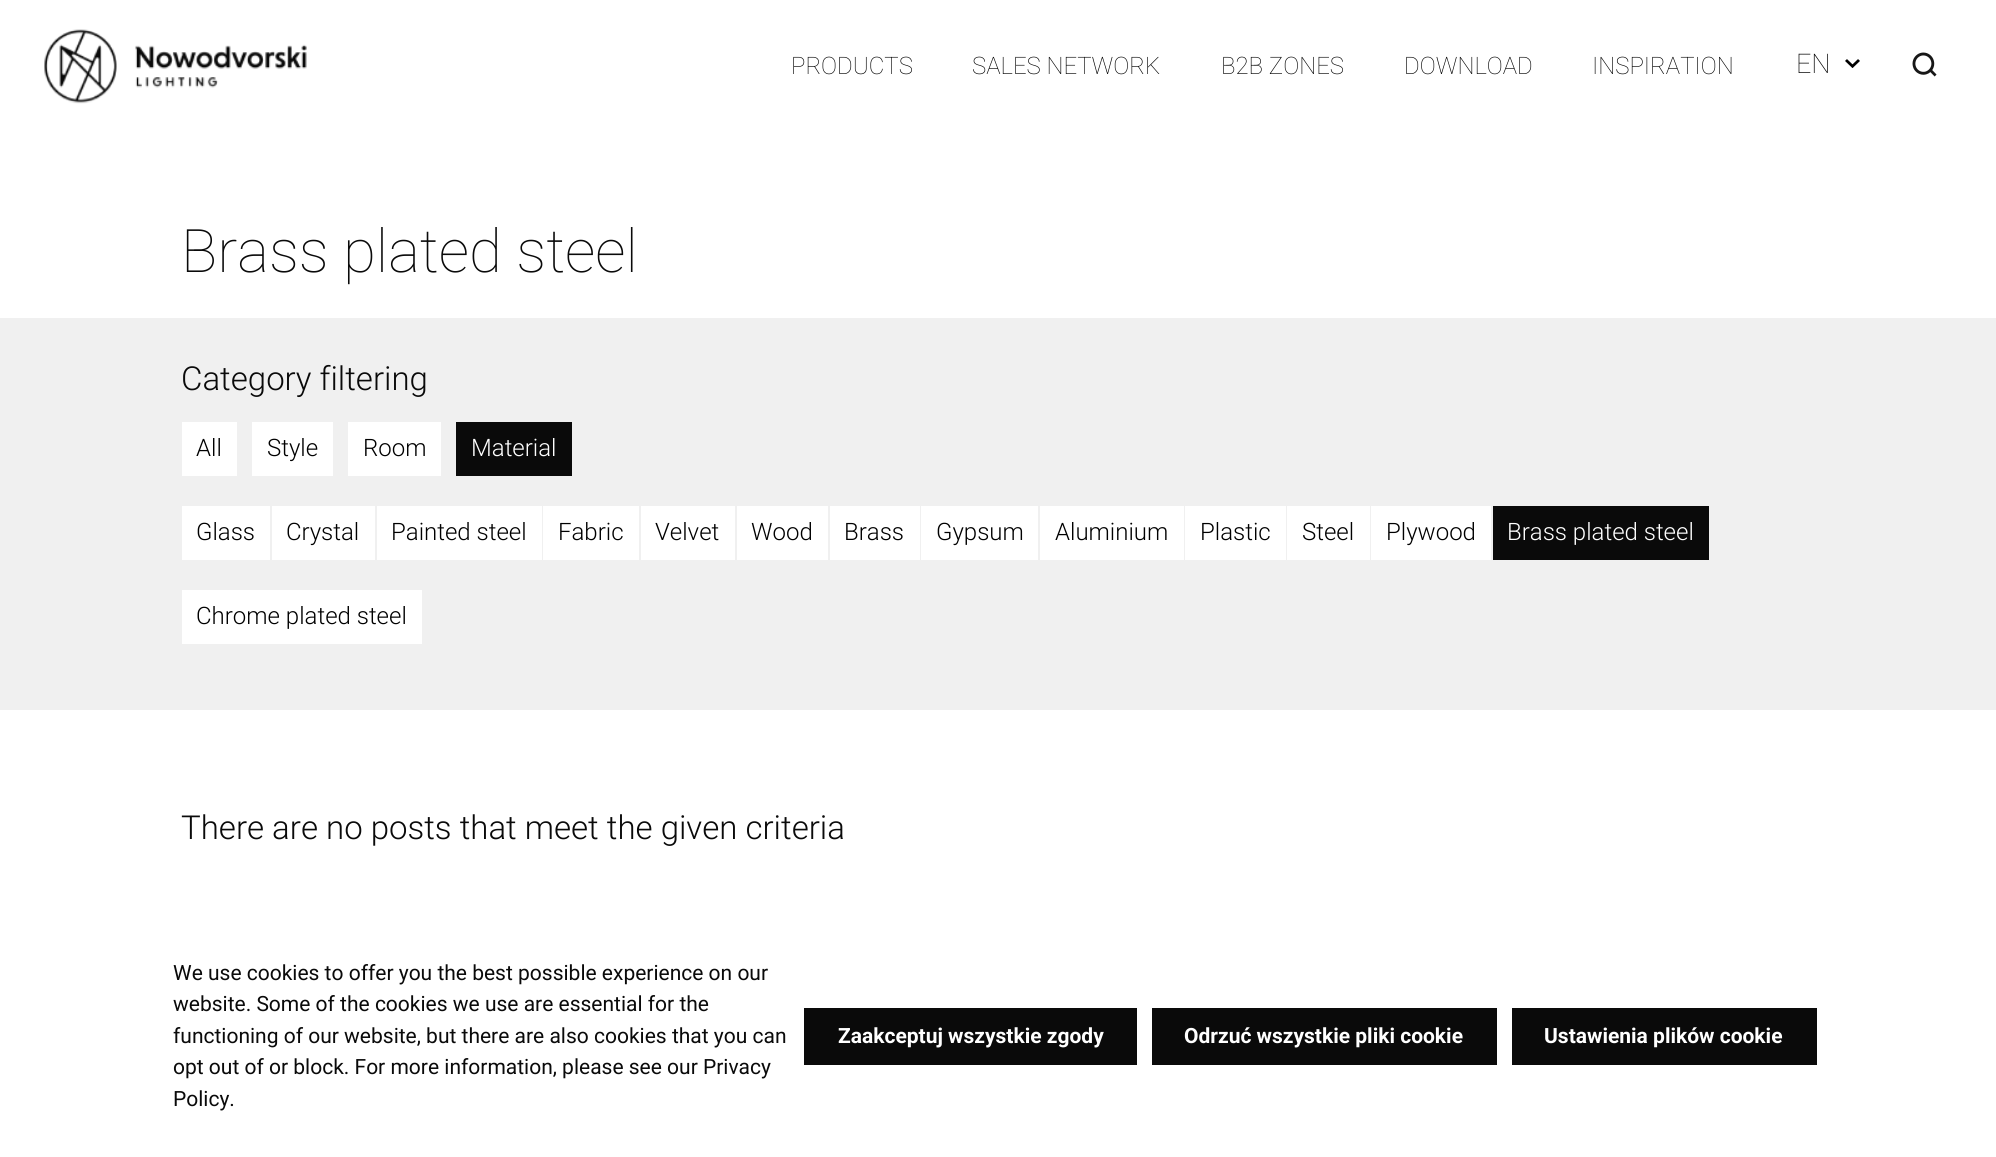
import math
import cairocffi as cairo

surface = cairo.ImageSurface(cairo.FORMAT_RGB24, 1996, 1157)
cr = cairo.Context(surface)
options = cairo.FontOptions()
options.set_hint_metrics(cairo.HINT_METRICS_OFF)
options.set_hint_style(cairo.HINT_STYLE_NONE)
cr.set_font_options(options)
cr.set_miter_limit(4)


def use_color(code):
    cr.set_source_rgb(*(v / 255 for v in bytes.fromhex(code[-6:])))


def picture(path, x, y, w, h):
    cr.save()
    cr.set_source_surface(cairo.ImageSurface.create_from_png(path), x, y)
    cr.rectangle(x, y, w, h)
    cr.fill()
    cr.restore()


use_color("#ffffff")
cr.paint()
picture("img1.png", 44, 29, 263, 75)
cr.select_font_face("Roboto Thin")
cr.set_font_size(24)
use_color("#000000")
cr.move_to(791, 74)
cr.show_text("PRODUCTS")
cr.move_to(972, 74)
cr.show_text("SALES NETWORK")
cr.move_to(1221, 74)
cr.show_text("B2B ZONES")
cr.move_to(1404, 74)
cr.show_text("DOWNLOAD")
cr.move_to(1592, 74)
cr.show_text("INSPIRATION")
cr.set_font_size(27)
cr.move_to(1796, 73)
cr.show_text("EN")
picture("img2.png", 1845, 59, 15, 9)
picture("img3.png", 1912, 52, 25, 25)
cr.set_font_size(60)
use_color("#0a0a0a")
cr.move_to(181, 272)
cr.show_text("Brass plated steel")
use_color("#f0f0f0")
cr.rectangle(0, 318, 1996, 392)
cr.fill()
cr.select_font_face("Roboto Light")
cr.set_font_size(33)
use_color("#0a0a0a")
cr.move_to(181, 390)
cr.show_text("Category filtering")
use_color("#ffffff")
cr.rectangle(182, 422, 55, 54)
cr.fill()
cr.set_font_size(24)
use_color("#000000")
cr.move_to(196, 456)
cr.show_text("All")
use_color("#ffffff")
cr.rectangle(252, 422, 81, 54)
cr.fill()
use_color("#000000")
cr.move_to(267, 456)
cr.show_text("Style")
use_color("#ffffff")
cr.rectangle(348, 422, 93, 54)
cr.fill()
use_color("#000000")
cr.move_to(363, 456)
cr.show_text("Room")
use_color("#0a0a0a")
cr.rectangle(456, 422, 116, 54)
cr.fill()
use_color("#ffffff")
cr.move_to(471, 456)
cr.show_text("Material")
cr.rectangle(182, 506, 88, 54)
cr.fill()
use_color("#000000")
cr.move_to(196, 540)
cr.show_text("Glass")
use_color("#ffffff")
cr.rectangle(272, 506, 103, 54)
cr.fill()
use_color("#000000")
cr.move_to(286, 540)
cr.show_text("Crystal")
use_color("#ffffff")
cr.rectangle(377, 506, 165, 54)
cr.fill()
use_color("#000000")
cr.move_to(391, 540)
cr.show_text("Painted steel")
use_color("#ffffff")
cr.rectangle(543, 506, 96, 54)
cr.fill()
use_color("#000000")
cr.move_to(558, 540)
cr.show_text("Fabric")
use_color("#ffffff")
cr.rectangle(641, 506, 94, 54)
cr.fill()
use_color("#000000")
cr.move_to(655, 540)
cr.show_text("Velvet")
use_color("#ffffff")
cr.rectangle(737, 506, 91, 54)
cr.fill()
use_color("#000000")
cr.move_to(751, 540)
cr.show_text("Wood")
use_color("#ffffff")
cr.rectangle(830, 506, 90, 54)
cr.fill()
use_color("#000000")
cr.move_to(844, 540)
cr.show_text("Brass")
use_color("#ffffff")
cr.rectangle(921, 506, 117, 54)
cr.fill()
use_color("#000000")
cr.move_to(936, 540)
cr.show_text("Gypsum")
use_color("#ffffff")
cr.rectangle(1040, 506, 144, 54)
cr.fill()
use_color("#000000")
cr.move_to(1055, 540)
cr.show_text("Aluminium")
use_color("#ffffff")
cr.rectangle(1185, 506, 101, 54)
cr.fill()
use_color("#000000")
cr.move_to(1200, 540)
cr.show_text("Plastic")
use_color("#ffffff")
cr.rectangle(1287, 506, 83, 54)
cr.fill()
use_color("#000000")
cr.move_to(1302, 540)
cr.show_text("Steel")
use_color("#ffffff")
cr.rectangle(1371, 506, 120, 54)
cr.fill()
use_color("#000000")
cr.move_to(1386, 540)
cr.show_text("Plywood")
use_color("#0a0a0a")
cr.rectangle(1493, 506, 216, 54)
cr.fill()
use_color("#ffffff")
cr.move_to(1507, 540)
cr.show_text("Brass plated steel")
cr.rectangle(182, 590, 240, 54)
cr.fill()
use_color("#000000")
cr.move_to(196, 624)
cr.show_text("Chrome plated steel")
cr.set_font_size(33)
use_color("#0a0a0a")
cr.move_to(181, 839)
cr.show_text("There are no posts that meet the given criteria")
cr.select_font_face("Roboto")
cr.set_font_size(21)
cr.move_to(173, 980)
cr.show_text("We use cookies to offer you the best possible experience on our")
cr.move_to(173, 1011)
cr.show_text("website. Some of the cookies we use are essential for the")
cr.move_to(173, 1043)
cr.show_text("functioning of our website, but there are also cookies that you can")
cr.move_to(173, 1074)
cr.show_text("opt out of or block. For more information, please see our Privacy")
cr.move_to(173, 1106)
cr.show_text("Policy.")
cr.rectangle(804, 1008, 333, 57)
cr.fill()
cr.select_font_face("Roboto", cairo.FONT_SLANT_NORMAL, cairo.FONT_WEIGHT_BOLD)
use_color("#ffffff")
cr.move_to(838, 1043)
cr.show_text("Zaakceptuj wszystkie zgody")
use_color("#0a0a0a")
cr.rectangle(1152, 1008, 345, 57)
cr.fill()
use_color("#ffffff")
cr.move_to(1184, 1043)
cr.show_text("Odrzuć wszystkie pliki cookie")
use_color("#0a0a0a")
cr.rectangle(1512, 1008, 305, 57)
cr.fill()
use_color("#ffffff")
cr.move_to(1544, 1043)
cr.show_text("Ustawienia plików cookie")
surface.write_to_png("result.png")
